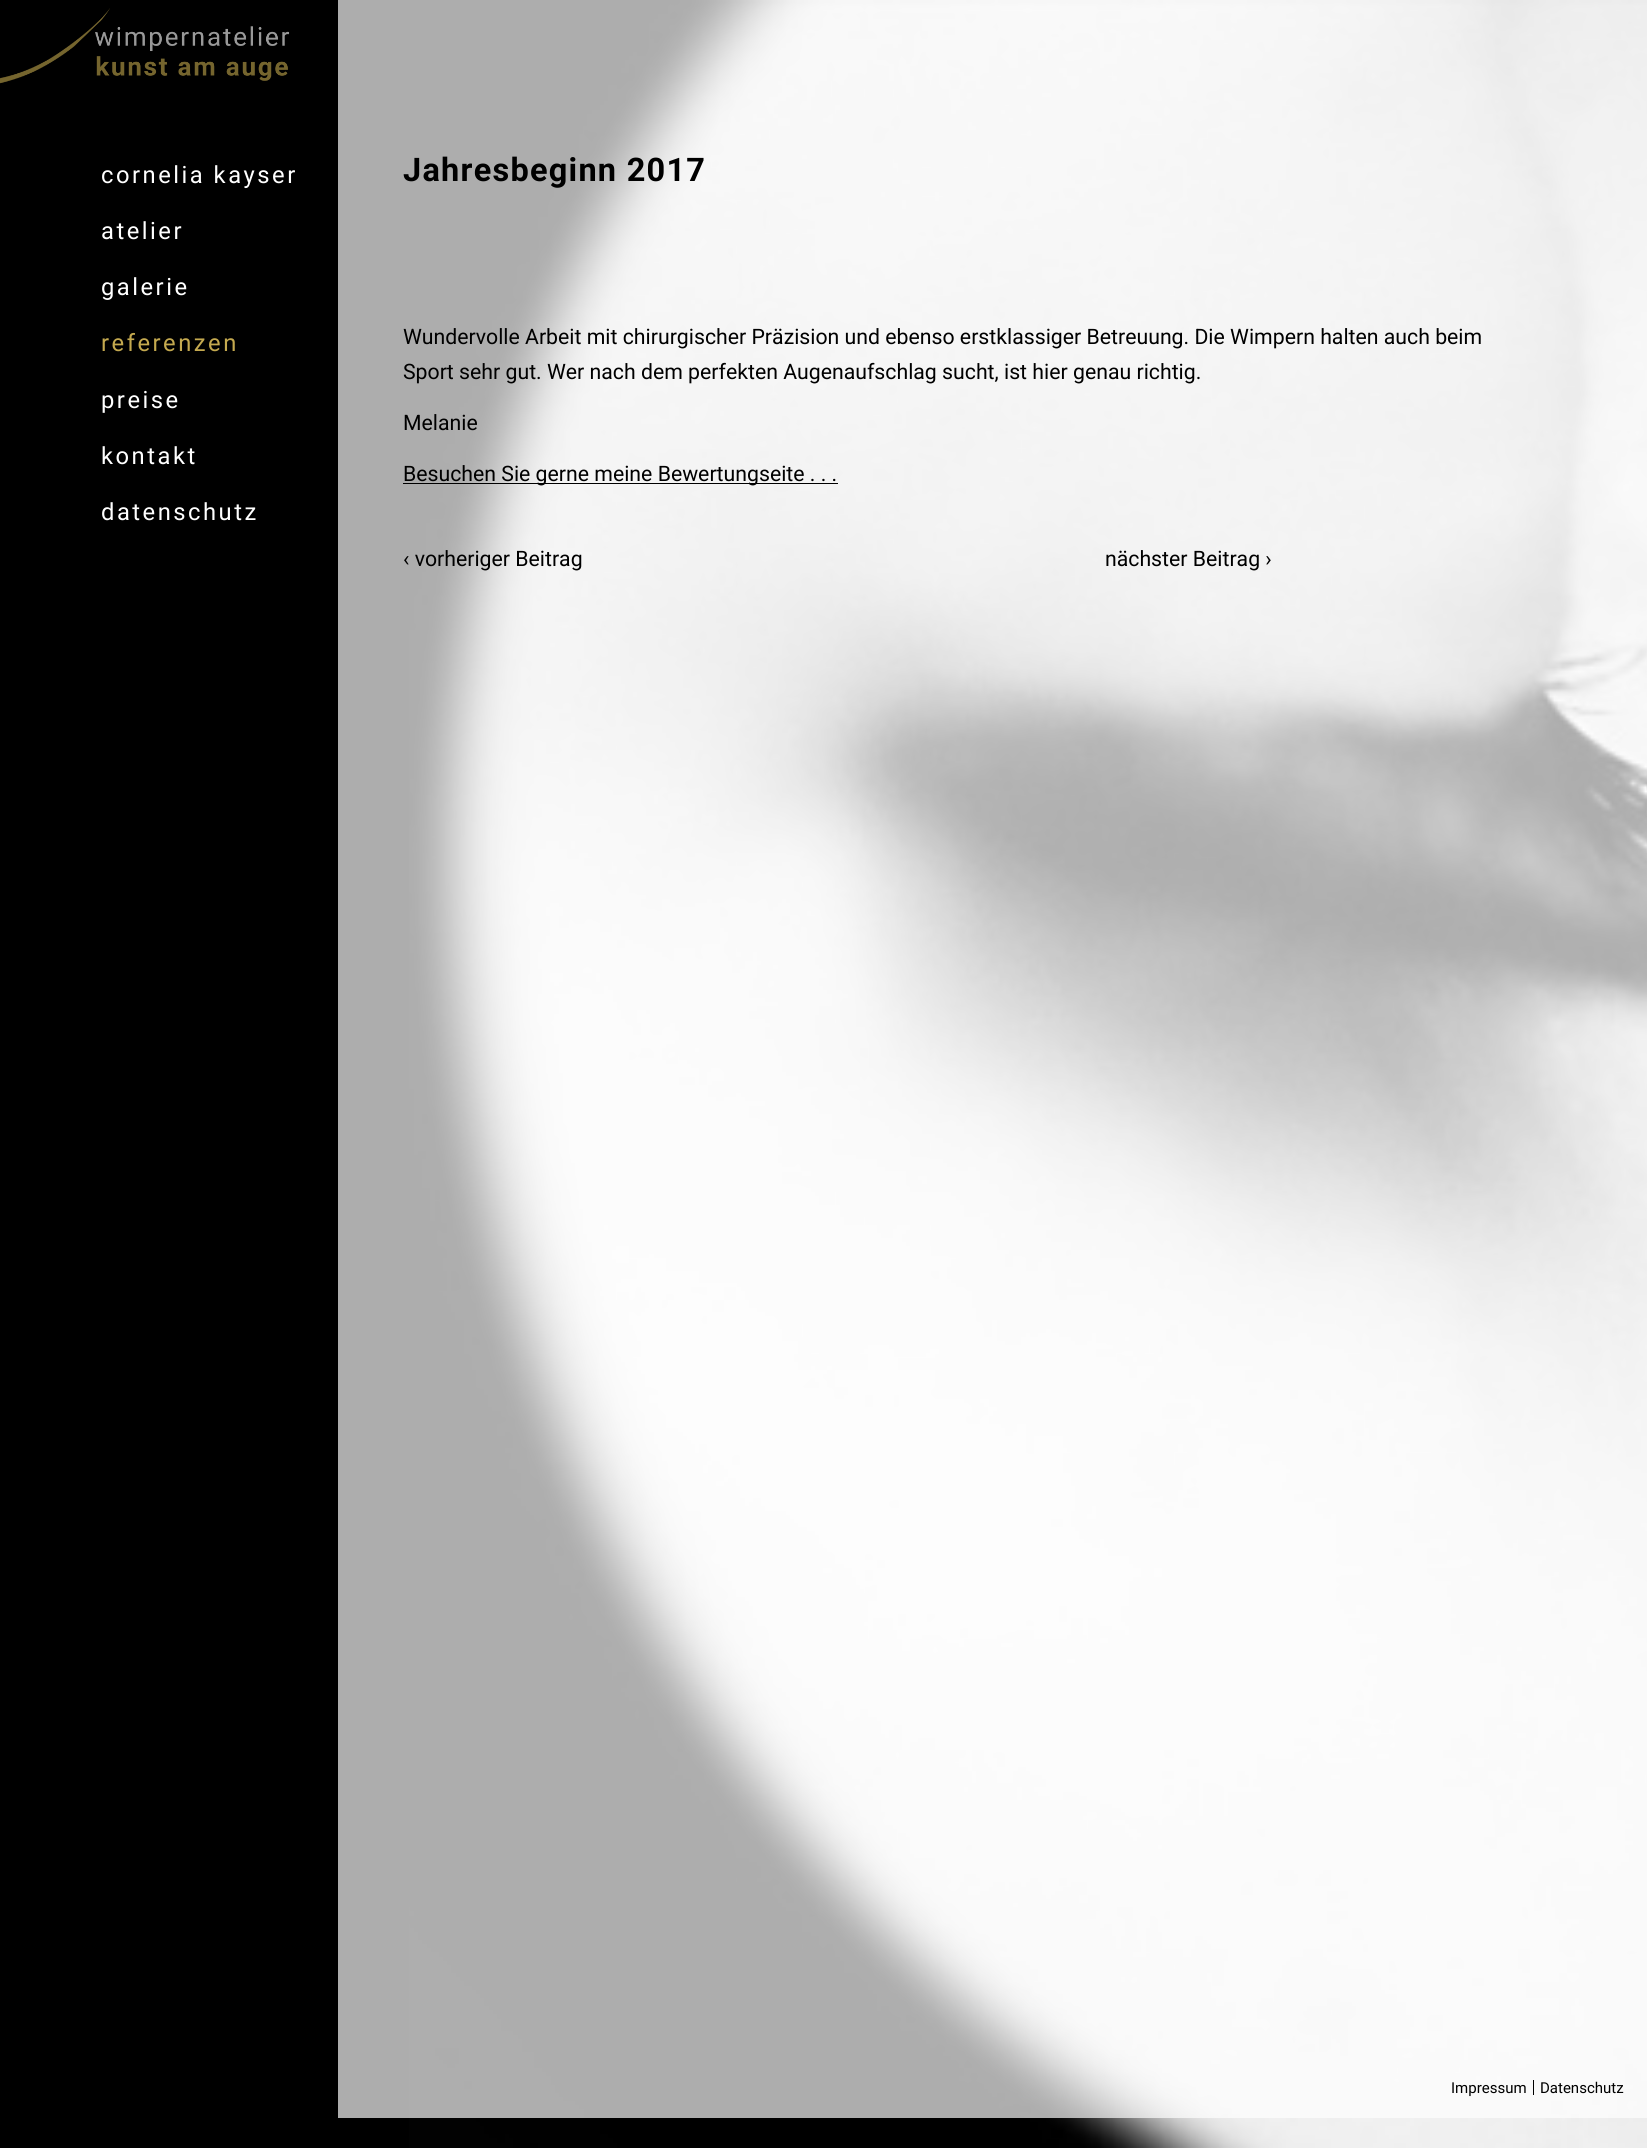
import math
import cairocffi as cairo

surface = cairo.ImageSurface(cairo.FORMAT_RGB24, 1647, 2148)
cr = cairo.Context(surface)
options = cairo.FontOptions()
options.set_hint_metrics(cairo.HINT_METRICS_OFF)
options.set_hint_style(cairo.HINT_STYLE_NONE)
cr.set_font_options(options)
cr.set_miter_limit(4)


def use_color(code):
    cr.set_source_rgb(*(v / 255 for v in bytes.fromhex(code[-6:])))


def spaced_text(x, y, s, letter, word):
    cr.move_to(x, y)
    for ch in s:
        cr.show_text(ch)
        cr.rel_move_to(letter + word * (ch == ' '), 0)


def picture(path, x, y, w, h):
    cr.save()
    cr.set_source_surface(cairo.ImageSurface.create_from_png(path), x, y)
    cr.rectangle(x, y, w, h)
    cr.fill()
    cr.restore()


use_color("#000000")
cr.paint()
use_color("#adadad")
cr.rectangle(338, 0, 71, 2118)
cr.fill()
picture("img1.png", 409, 0, 1238, 2148)
picture("img2.png", 0, 8, 290, 76)
cr.select_font_face("Roboto")
cr.set_font_size(23.75)
use_color("#ffffff")
spaced_text(101, 183, "cornelia kayser", 2.5, 0)
spaced_text(101, 239, "atelier", 2.5, 0)
spaced_text(101, 295, "galerie", 2.5, 0)
use_color("#c4a94f")
spaced_text(101, 351, "referenzen", 2.5, 0)
use_color("#ffffff")
spaced_text(101, 408, "preise", 2.5, 0)
spaced_text(101, 464, "kontakt", 2.5, 0)
spaced_text(101, 520, "datenschutz", 2.5, 0)
cr.select_font_face("Roboto", cairo.FONT_SLANT_NORMAL, cairo.FONT_WEIGHT_BOLD)
cr.set_font_size(32.5)
use_color("#000000")
spaced_text(403, 181, "Jahresbeginn 2017", 1.25, 0)
cr.select_font_face("Roboto")
cr.set_font_size(21.25)
cr.move_to(403, 344)
cr.show_text("Wundervolle Arbeit mit chirurgischer Präzision und ebenso erstklassiger Betreuung. Die Wimpern halten auch beim")
cr.move_to(403, 379)
cr.show_text("Sport sehr gut. Wer nach dem perfekten Augenaufschlag sucht, ist hier genau richtig.")
cr.move_to(403, 430)
cr.show_text("Melanie")
cr.rectangle(403, 483, 435, 1)
cr.fill()
cr.move_to(403, 481)
cr.show_text("Besuchen Sie gerne meine Bewertungseite . . .")
cr.move_to(403, 566)
cr.show_text("‹ vorheriger Beitrag")
cr.move_to(1105, 566)
cr.show_text("nächster Beitrag ›")
cr.rectangle(1533, 2080, 1, 15)
cr.fill()
cr.set_font_size(15)
cr.move_to(1451, 2093)
cr.show_text("Impressum")
cr.move_to(1540, 2093)
cr.show_text("Datenschutz")
surface.write_to_png("result.png")
